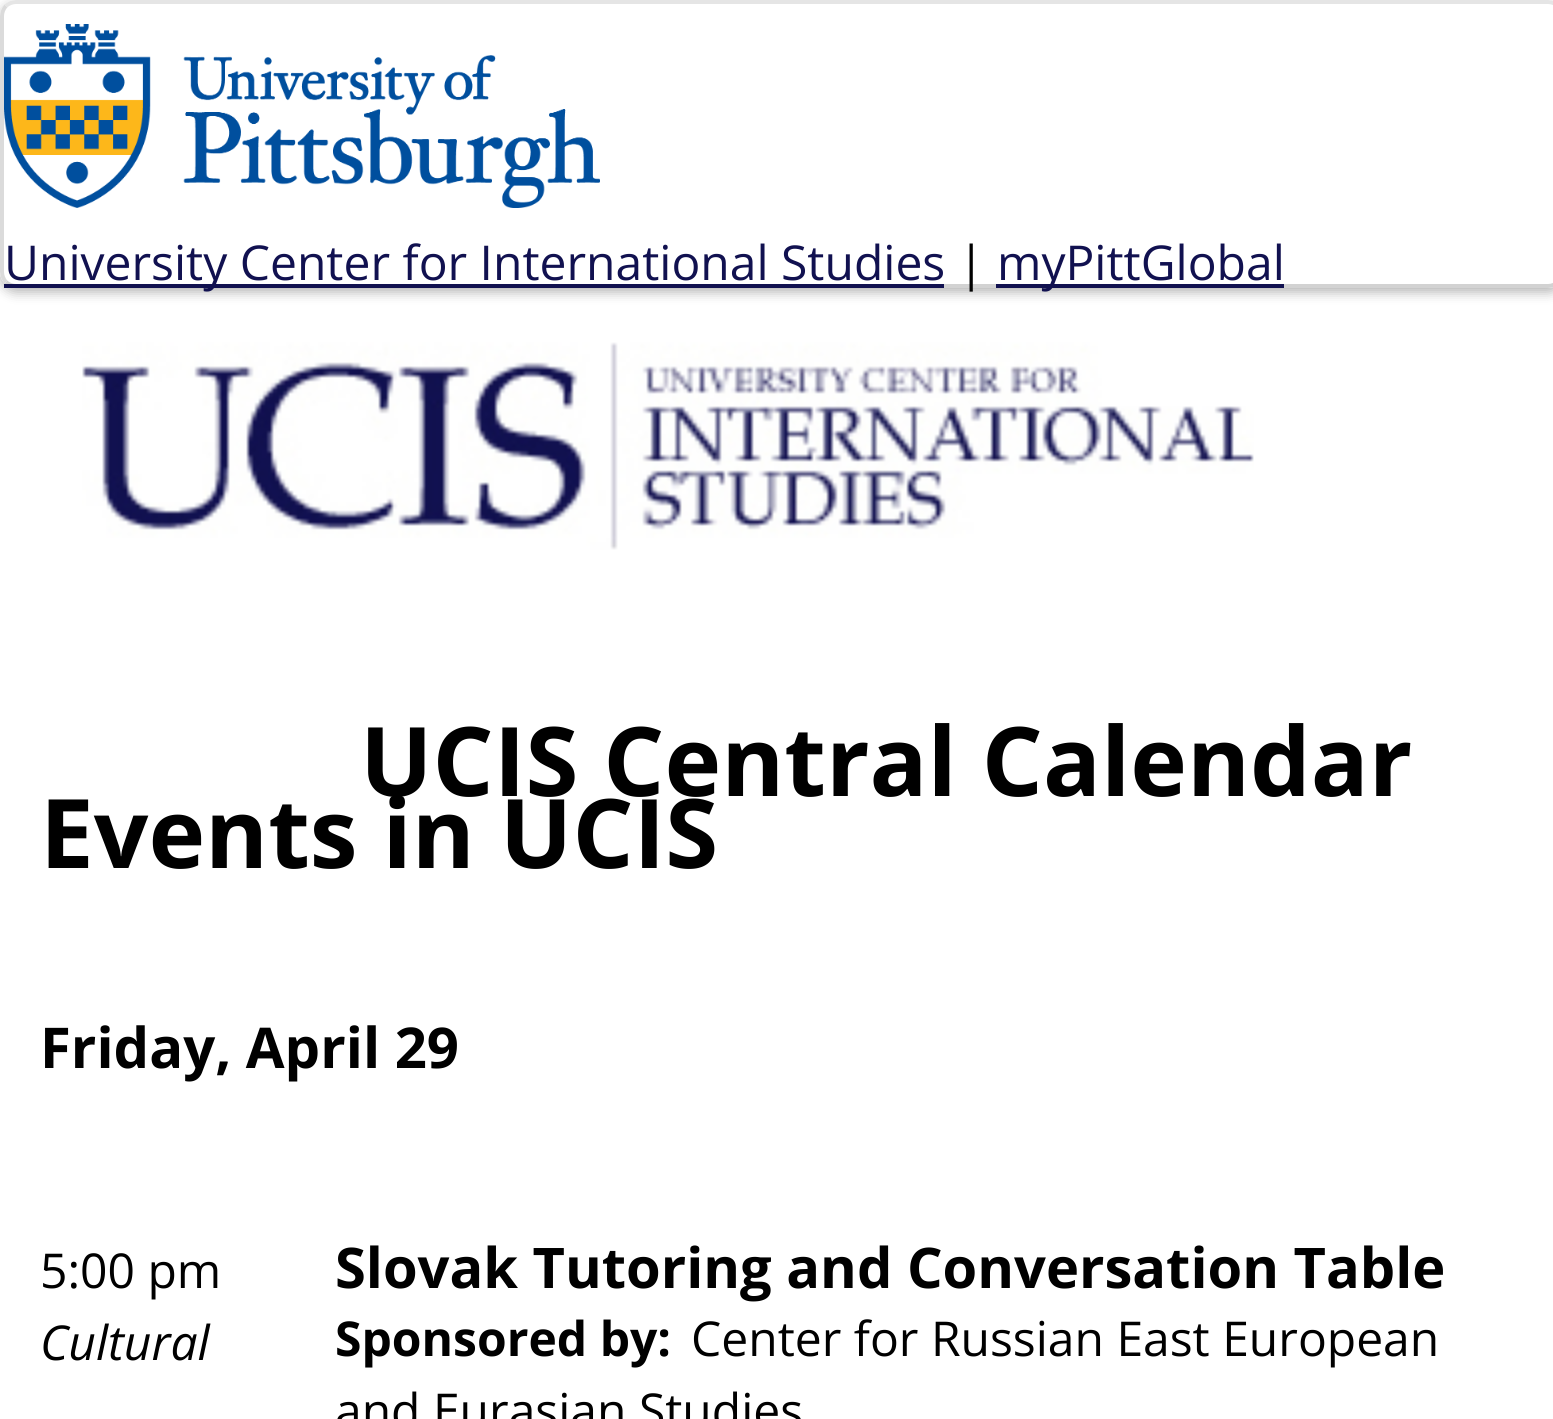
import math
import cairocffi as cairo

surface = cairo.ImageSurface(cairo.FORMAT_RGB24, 1553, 1419)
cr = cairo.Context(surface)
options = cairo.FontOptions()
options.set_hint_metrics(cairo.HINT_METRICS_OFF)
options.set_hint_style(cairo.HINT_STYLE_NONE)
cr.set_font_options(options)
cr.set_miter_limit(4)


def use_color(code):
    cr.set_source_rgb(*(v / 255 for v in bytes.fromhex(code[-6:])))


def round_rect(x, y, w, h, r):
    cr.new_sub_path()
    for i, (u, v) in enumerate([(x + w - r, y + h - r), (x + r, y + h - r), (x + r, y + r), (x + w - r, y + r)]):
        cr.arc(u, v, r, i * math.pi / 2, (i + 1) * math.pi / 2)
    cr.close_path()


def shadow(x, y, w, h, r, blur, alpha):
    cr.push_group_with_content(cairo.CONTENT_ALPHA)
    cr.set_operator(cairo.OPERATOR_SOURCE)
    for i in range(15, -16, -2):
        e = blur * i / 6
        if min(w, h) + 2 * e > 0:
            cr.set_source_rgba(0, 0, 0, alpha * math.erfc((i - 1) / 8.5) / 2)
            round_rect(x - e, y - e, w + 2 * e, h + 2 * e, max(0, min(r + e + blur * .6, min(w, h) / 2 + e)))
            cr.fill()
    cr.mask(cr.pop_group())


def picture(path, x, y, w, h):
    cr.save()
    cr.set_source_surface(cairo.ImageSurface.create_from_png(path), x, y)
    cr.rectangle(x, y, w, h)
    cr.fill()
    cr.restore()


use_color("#ffffff")
cr.paint()
use_color("#000000")
shadow(0, 4, 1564, 288, 16, 6, 0.3)
use_color("#ffffff")
round_rect(0, 0, 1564, 288, 16)
cr.fill()
cr.new_path()
cr.move_to(6, 6)
cr.curve_to(8.5, 3.5, 12.5, 2, 16, 2)
cr.line_to(1548, 2)
cr.curve_to(1551.5, 2, 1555.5, 3.5, 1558, 6)
use_color("#e5e5e5")
cr.set_line_width(4)
cr.stroke()
cr.new_path()
cr.move_to(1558, 282)
cr.curve_to(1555.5, 284.5, 1551.5, 286, 1548, 286)
cr.line_to(16, 286)
cr.curve_to(12.5, 286, 8.5, 284.5, 6, 282)
use_color("#d2d2d2")
cr.stroke()
cr.new_path()
cr.move_to(6, 282)
cr.curve_to(3.5, 279.5, 2, 275.5, 2, 272)
cr.line_to(2, 16)
cr.curve_to(2, 12.5, 3.5, 8.5, 6, 6)
use_color("#dbdbdb")
cr.stroke()
picture("img1.png", 4, 24, 596, 184)
use_color("#111150")
cr.rectangle(4, 284, 940, 4)
cr.fill()
cr.select_font_face("Open Sans")
cr.set_font_size(48)
cr.move_to(4, 280)
cr.show_text("University Center for International Studies")
use_color("#000000")
cr.move_to(958, 280)
cr.show_text("|")
use_color("#111150")
cr.rectangle(996, 284, 288, 4)
cr.fill()
cr.move_to(997, 280)
cr.show_text("myPittGlobal")
picture("img2.png", 82, 342, 1172, 208)
cr.select_font_face("Open Sans", cairo.FONT_SLANT_NORMAL, cairo.FONT_WEIGHT_BOLD)
cr.set_font_size(96)
use_color("#000000")
cr.move_to(360, 796)
cr.show_text("UCIS Central Calendar")
cr.move_to(40, 868)
cr.show_text("Events in UCIS")
cr.set_font_size(56.25)
cr.move_to(40, 1068)
cr.show_text("Friday, April 29")
cr.select_font_face("Open Sans")
cr.set_font_size(48)
cr.move_to(40, 1288)
cr.show_text("5:00 pm")
cr.select_font_face("Open Sans", cairo.FONT_SLANT_ITALIC)
cr.move_to(40, 1360)
cr.show_text("Cultural")
cr.select_font_face("Open Sans", cairo.FONT_SLANT_NORMAL, cairo.FONT_WEIGHT_BOLD)
cr.set_font_size(56)
cr.move_to(335, 1288)
cr.show_text("Slovak Tutoring and Conversation Table")
cr.set_font_size(48)
cr.move_to(335, 1356)
cr.show_text("Sponsored by:")
cr.select_font_face("Open Sans")
cr.move_to(691, 1356)
cr.show_text("Center for Russian East European")
cr.move_to(335, 1428)
cr.show_text("and Eurasian Studies")
surface.write_to_png("result.png")
